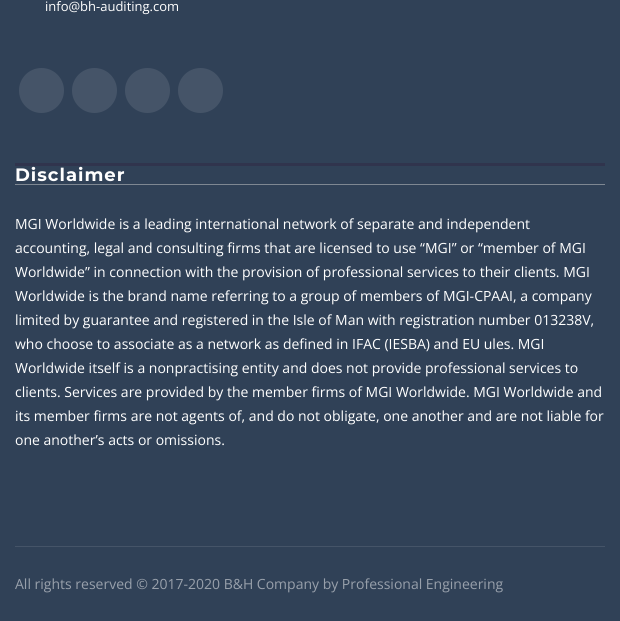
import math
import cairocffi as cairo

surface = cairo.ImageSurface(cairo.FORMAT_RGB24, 620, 621)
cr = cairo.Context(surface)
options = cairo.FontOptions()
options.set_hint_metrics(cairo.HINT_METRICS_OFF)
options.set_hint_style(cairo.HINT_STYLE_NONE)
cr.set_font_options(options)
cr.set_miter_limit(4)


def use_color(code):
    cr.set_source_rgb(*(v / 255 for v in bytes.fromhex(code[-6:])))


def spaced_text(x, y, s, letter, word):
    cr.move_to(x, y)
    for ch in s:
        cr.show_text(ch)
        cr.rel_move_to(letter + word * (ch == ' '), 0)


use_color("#304157")
cr.paint()
cr.select_font_face("Open Sans")
cr.set_font_size(13)
use_color("#ffffff")
cr.move_to(45, 11)
cr.show_text("info@bh-auditing.com")
use_color("#455468")
cr.new_path()
cr.arc(41.5, 90.5, 22.5, 0, 2 * math.pi)
cr.fill()
cr.arc(94.5, 90.5, 22.5, 0, 2 * math.pi)
cr.fill()
cr.arc(147.5, 90.5, 22.5, 0, 2 * math.pi)
cr.fill()
cr.arc(200.5, 90.5, 22.5, 0, 2 * math.pi)
cr.fill()
use_color("#30344d")
cr.rectangle(15, 163, 590, 3)
cr.fill()
use_color("#7e8792")
cr.rectangle(15, 184, 590, 1)
cr.fill()
cr.select_font_face("Montserrat", cairo.FONT_SLANT_NORMAL, cairo.FONT_WEIGHT_BOLD)
cr.set_font_size(18)
use_color("#ffffff")
spaced_text(15, 181, "Disclaimer", 1, 0)
cr.select_font_face("Open Sans")
cr.set_font_size(14)
cr.move_to(15, 229)
cr.show_text("MGI Worldwide is a leading international network of separate and independent")
cr.move_to(15, 253)
cr.show_text("accounting, legal and consulting firms that are licensed to use “MGI” or “member of MGI")
cr.move_to(15, 277)
cr.show_text("Worldwide” in connection with the provision of professional services to their clients. MGI")
cr.move_to(15, 301)
cr.show_text("Worldwide is the brand name referring to a group of members of MGI-CPAAI, a company")
cr.move_to(15, 325)
cr.show_text("limited by guarantee and registered in the Isle of Man with registration number 013238V,")
cr.move_to(15, 349)
cr.show_text("who choose to associate as a network as defined in IFAC (IESBA) and EU ules. MGI")
cr.move_to(15, 373)
cr.show_text("Worldwide itself is a nonpractising entity and does not provide professional services to")
cr.move_to(15, 397)
cr.show_text("clients. Services are provided by the member firms of MGI Worldwide. MGI Worldwide and")
cr.move_to(15, 421)
cr.show_text("its member firms are not agents of, and do not obligate, one another and are not liable for")
cr.move_to(15, 445)
cr.show_text("one another’s acts or omissions.")
use_color("#455468")
cr.rectangle(15, 546, 590, 1)
cr.fill()
use_color("#98a0ab")
cr.move_to(15, 589)
cr.show_text("All rights reserved © 2017-2020 B&H Company by Professional Engineering")
surface.write_to_png("result.png")
